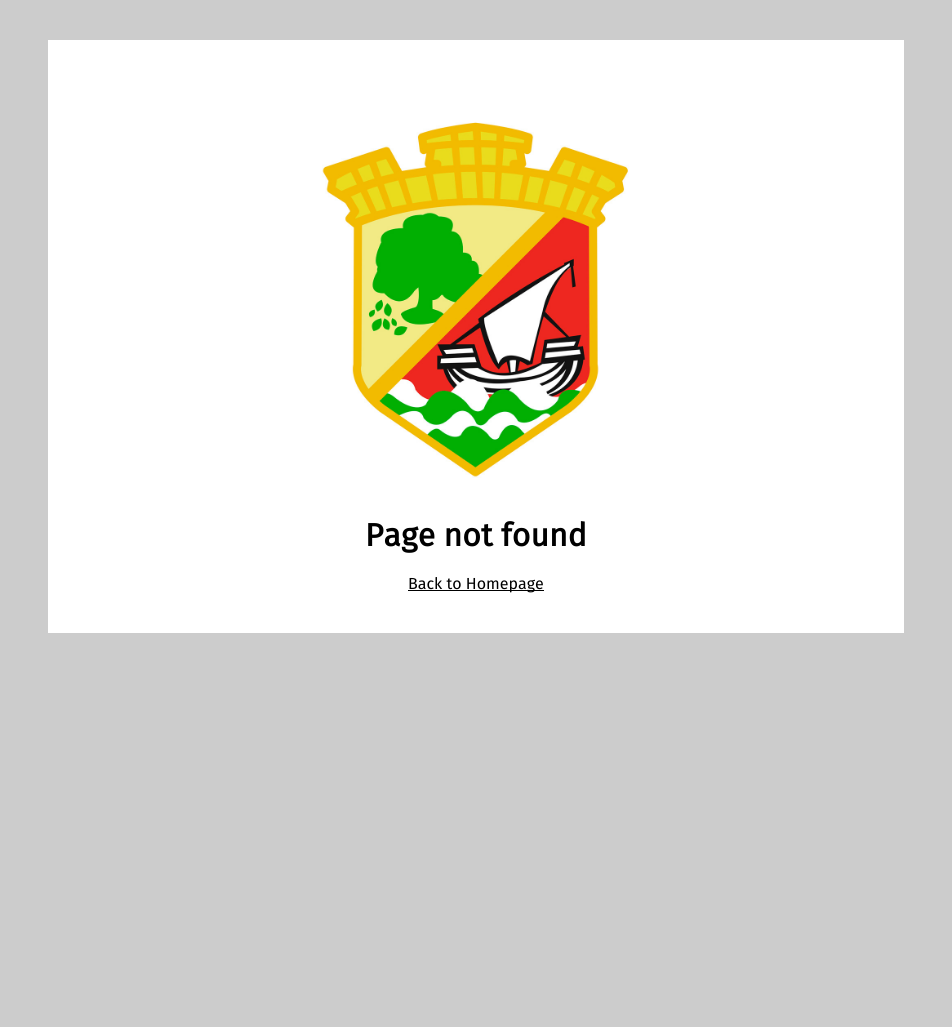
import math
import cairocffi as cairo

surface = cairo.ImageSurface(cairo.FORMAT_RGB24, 952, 1027)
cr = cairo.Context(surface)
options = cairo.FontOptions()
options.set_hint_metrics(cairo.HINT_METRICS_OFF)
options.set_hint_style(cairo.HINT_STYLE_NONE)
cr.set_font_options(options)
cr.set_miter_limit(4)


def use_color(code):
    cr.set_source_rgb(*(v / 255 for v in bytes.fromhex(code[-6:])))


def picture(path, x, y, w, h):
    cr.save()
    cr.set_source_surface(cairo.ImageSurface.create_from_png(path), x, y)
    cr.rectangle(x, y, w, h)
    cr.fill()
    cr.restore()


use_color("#cccccc")
cr.paint()
use_color("#ffffff")
cr.rectangle(48, 40, 856, 593)
cr.fill()
picture("img1.png", 322, 122, 307, 356)
cr.select_font_face("Fira Sans", cairo.FONT_SLANT_NORMAL, cairo.FONT_WEIGHT_BOLD)
cr.set_font_size(32)
use_color("#000000")
cr.move_to(365, 546)
cr.show_text("Page not found")
cr.rectangle(408, 590, 136, 1)
cr.fill()
cr.select_font_face("Fira Sans")
cr.set_font_size(16)
cr.move_to(408, 589)
cr.show_text("Back to Homepage")
surface.write_to_png("result.png")
